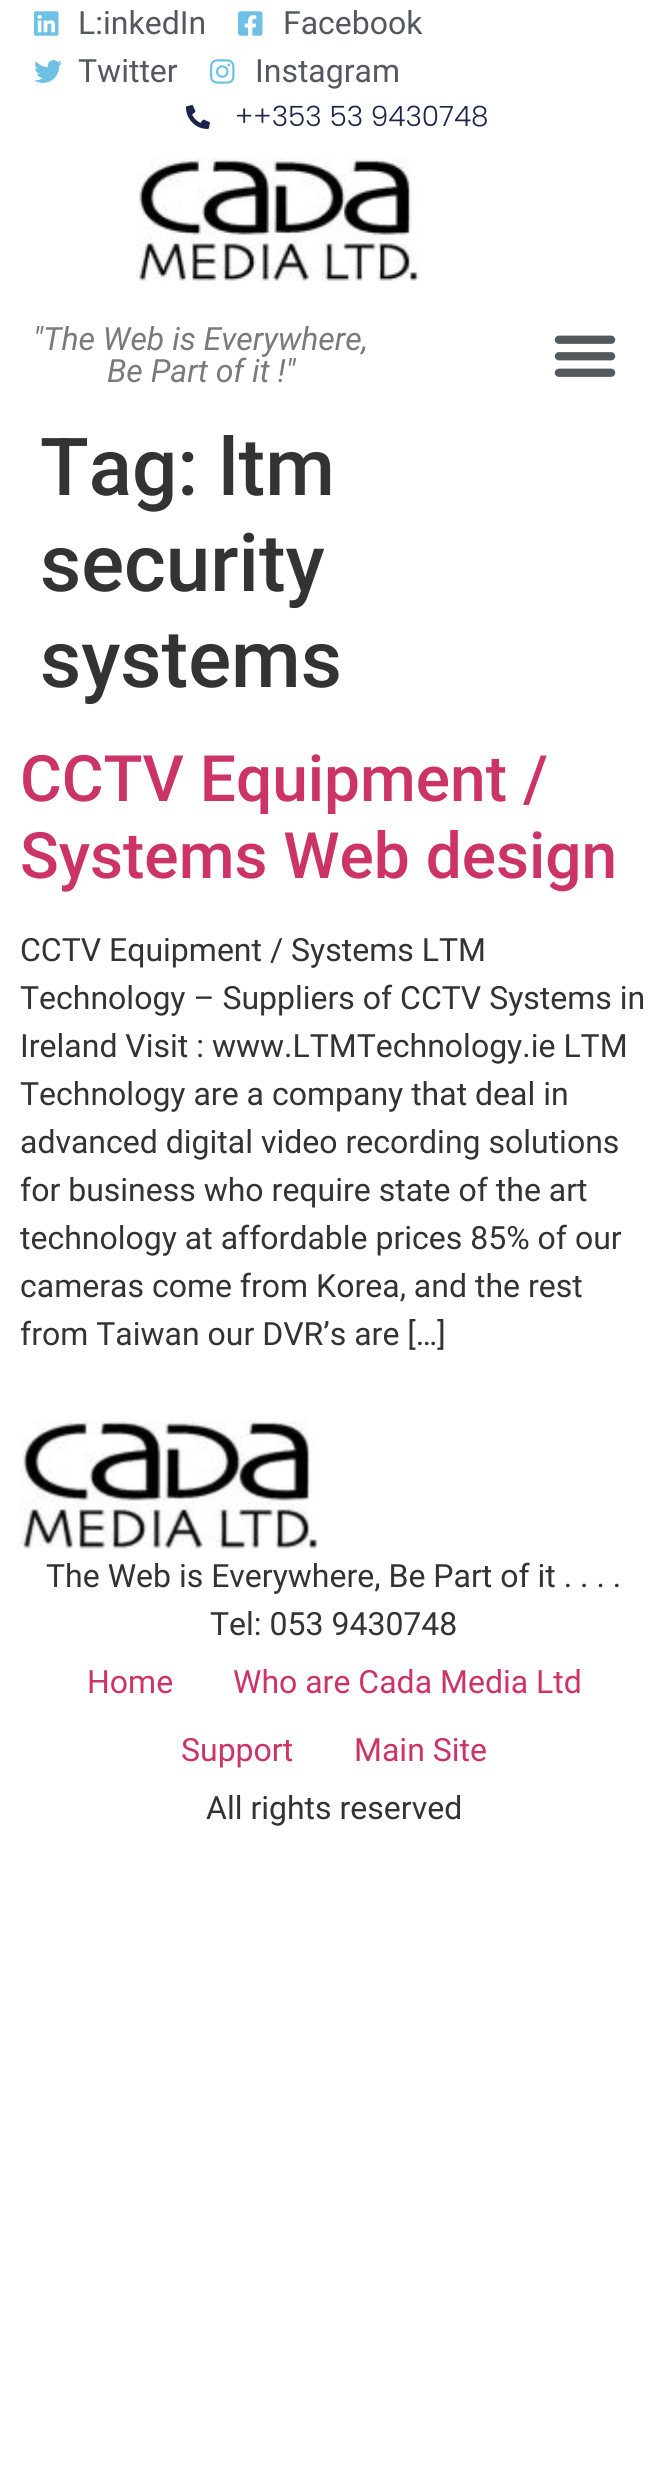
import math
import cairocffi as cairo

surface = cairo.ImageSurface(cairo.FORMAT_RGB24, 668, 2467)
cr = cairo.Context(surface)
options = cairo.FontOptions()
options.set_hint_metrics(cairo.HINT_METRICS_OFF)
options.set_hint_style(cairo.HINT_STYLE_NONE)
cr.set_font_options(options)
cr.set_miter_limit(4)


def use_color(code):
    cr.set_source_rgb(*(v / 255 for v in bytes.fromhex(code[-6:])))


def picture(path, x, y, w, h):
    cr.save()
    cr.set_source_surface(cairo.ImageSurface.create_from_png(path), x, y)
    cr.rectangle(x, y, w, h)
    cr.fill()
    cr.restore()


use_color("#ffffff")
cr.paint()
picture("img1.png", 34, 11, 25, 25)
cr.select_font_face("Roboto")
cr.set_font_size(32)
use_color("#54595f")
cr.move_to(78, 34)
cr.show_text("L:inkedIn")
picture("img2.png", 238, 11, 25, 25)
cr.move_to(283, 34)
cr.show_text("Facebook")
picture("img3.png", 34, 60, 28, 23)
cr.move_to(78, 82)
cr.show_text("Twitter")
picture("img4.png", 210, 59, 25, 25)
cr.move_to(255, 82)
cr.show_text("Instagram")
picture("img5.png", 186, 105, 24, 24)
cr.select_font_face("Poppins Light")
cr.set_font_size(28)
use_color("#1c244b")
cr.move_to(235, 126)
cr.show_text("++353 53 9430748")
picture("img6.png", 136, 158, 283, 123)
cr.select_font_face("Roboto", cairo.FONT_SLANT_ITALIC)
cr.set_font_size(32)
use_color("#7a7a7a")
cr.move_to(33, 350)
cr.show_text("\"The Web is Everywhere,")
cr.move_to(107, 382)
cr.show_text("Be Part of it !\"")
picture("img7.png", 554, 335, 62, 42)
cr.select_font_face("Roboto Medium")
cr.set_font_size(80)
use_color("#333333")
cr.move_to(40, 495)
cr.show_text("Tag: ltm")
cr.move_to(40, 591)
cr.show_text("security")
cr.move_to(40, 687)
cr.show_text("systems")
cr.set_font_size(64)
use_color("#cc3366")
cr.move_to(20, 801)
cr.show_text("CCTV Equipment /")
cr.move_to(20, 878)
cr.show_text("Systems Web design")
cr.select_font_face("Roboto")
cr.set_font_size(32)
use_color("#333333")
cr.move_to(20, 961)
cr.show_text("CCTV Equipment / Systems LTM")
cr.move_to(20, 1009)
cr.show_text("Technology – Suppliers of CCTV Systems in")
cr.move_to(20, 1057)
cr.show_text("Ireland Visit : www.LTMTechnology.ie LTM")
cr.move_to(20, 1105)
cr.show_text("Technology are a company that deal in")
cr.move_to(20, 1153)
cr.show_text("advanced digital video recording solutions")
cr.move_to(20, 1201)
cr.show_text("for business who require state of the art")
cr.move_to(20, 1249)
cr.show_text("technology at affordable prices 85% of our")
cr.move_to(20, 1297)
cr.show_text("cameras come from Korea, and the rest")
cr.move_to(20, 1345)
cr.show_text("from Taiwan our DVR’s are […]")
picture("img8.png", 20, 1420, 299, 129)
cr.move_to(46, 1587)
cr.show_text("The Web is Everywhere, Be Part of it . . . .")
cr.move_to(210, 1635)
cr.show_text("Tel: 053 9430748")
use_color("#cc3366")
cr.move_to(87, 1693)
cr.show_text("Home")
cr.move_to(233, 1693)
cr.show_text("Who are Cada Media Ltd")
cr.move_to(181, 1761)
cr.show_text("Support")
cr.move_to(354, 1761)
cr.show_text("Main Site")
use_color("#333333")
cr.move_to(206, 1819)
cr.show_text("All rights reserved")
surface.write_to_png("result.png")
